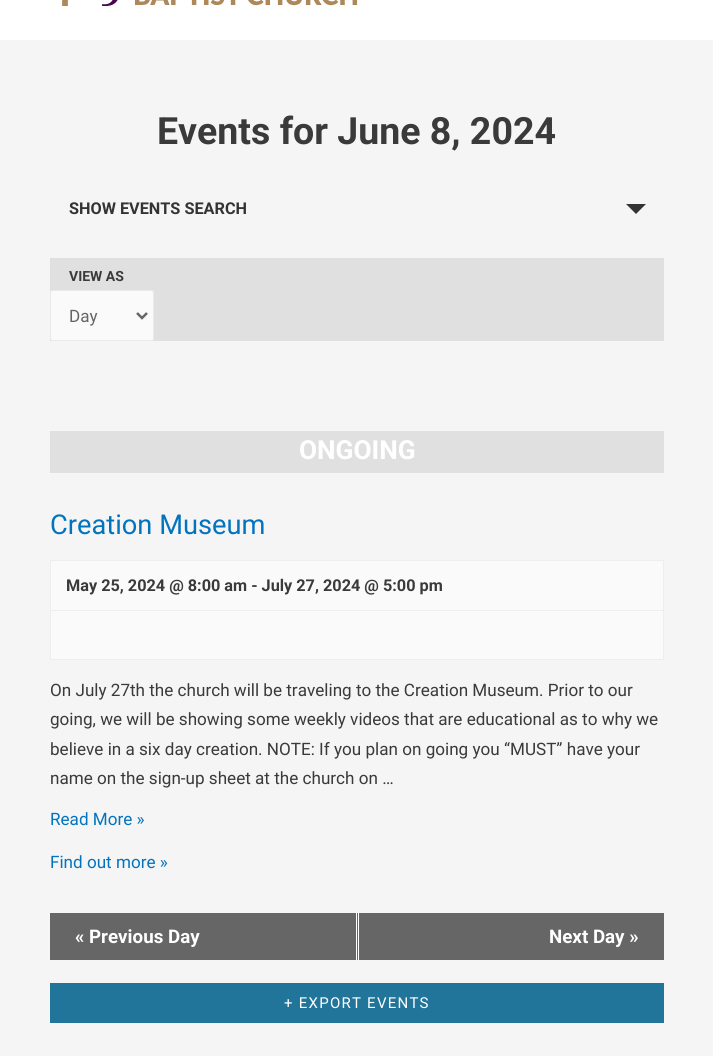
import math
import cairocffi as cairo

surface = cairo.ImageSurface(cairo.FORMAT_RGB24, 713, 1056)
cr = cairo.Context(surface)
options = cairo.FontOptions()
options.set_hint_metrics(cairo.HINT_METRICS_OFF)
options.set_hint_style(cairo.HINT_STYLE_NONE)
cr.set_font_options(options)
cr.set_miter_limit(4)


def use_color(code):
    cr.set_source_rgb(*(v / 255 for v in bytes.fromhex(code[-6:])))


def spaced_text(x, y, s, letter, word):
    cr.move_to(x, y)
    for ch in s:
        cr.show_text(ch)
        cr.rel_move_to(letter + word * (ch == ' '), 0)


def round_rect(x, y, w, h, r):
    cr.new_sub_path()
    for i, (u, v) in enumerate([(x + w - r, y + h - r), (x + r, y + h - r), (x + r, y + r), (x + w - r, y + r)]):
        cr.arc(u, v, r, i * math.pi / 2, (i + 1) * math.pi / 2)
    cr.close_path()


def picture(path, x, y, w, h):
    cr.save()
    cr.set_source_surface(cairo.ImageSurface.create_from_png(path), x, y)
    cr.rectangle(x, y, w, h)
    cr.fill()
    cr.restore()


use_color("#f5f5f5")
cr.paint()
use_color("#ffffff")
cr.rectangle(0, 0, 713, 40)
cr.fill()
picture("img1.png", 62, 0, 296, 6)
cr.select_font_face("Roboto", cairo.FONT_SLANT_NORMAL, cairo.FONT_WEIGHT_BOLD)
cr.set_font_size(37.5)
use_color("#3a3a3a")
cr.move_to(157, 144)
cr.show_text("Events for June 8, 2024")
cr.set_font_size(16.25)
use_color("#333333")
cr.move_to(69, 214)
cr.show_text("SHOW EVENTS SEARCH")
cr.new_path()
cr.move_to(626, 204)
cr.line_to(646, 204)
cr.line_to(636, 214)
cr.close_path()
cr.fill()
use_color("#e0e0e0")
cr.rectangle(50, 258, 614, 83)
cr.fill()
cr.set_font_size(14)
use_color("#3a3a3a")
cr.move_to(69, 281)
cr.show_text("VIEW AS")
use_color("#fafafa")
round_rect(50.5, 290.5, 103, 50, 2)
cr.fill_preserve()
use_color("#eaeaea")
cr.set_line_width(1)
cr.stroke()
cr.new_path()
cr.move_to(137, 313)
cr.line_to(142, 318)
cr.line_to(147, 313)
use_color("#666666")
cr.set_line_width(2.5)
cr.stroke()
cr.select_font_face("Roboto")
cr.set_font_size(17.1)
cr.move_to(69, 322)
cr.show_text("Day")
use_color("#e0e0e0")
cr.rectangle(50, 431, 614, 42)
cr.fill()
cr.select_font_face("Roboto", cairo.FONT_SLANT_NORMAL, cairo.FONT_WEIGHT_BOLD)
cr.set_font_size(26.25)
use_color("#ffffff")
cr.move_to(299, 459)
cr.show_text("ONGOING")
cr.select_font_face("Roboto")
cr.set_font_size(27.25)
use_color("#0274be")
cr.move_to(50, 534)
cr.show_text("Creation Museum")
use_color("#fafafa")
cr.rectangle(50.5, 560.5, 613, 99)
cr.fill_preserve()
use_color("#eeeeee")
cr.set_line_width(1)
cr.stroke()
cr.select_font_face("Roboto", cairo.FONT_SLANT_NORMAL, cairo.FONT_WEIGHT_BOLD)
cr.set_font_size(16.25)
use_color("#3a3a3a")
cr.move_to(66, 591)
cr.show_text("May 25, 2024 @ 8:00 am - July 27, 2024 @ 5:00 pm")
use_color("#eeeeee")
cr.rectangle(51, 610, 612, 1)
cr.fill()
cr.select_font_face("Roboto")
cr.set_font_size(17.1)
use_color("#3a3a3a")
cr.move_to(50, 696)
cr.show_text("On July 27th the church will be traveling to the Creation Museum. Prior to our")
cr.move_to(50, 725)
cr.show_text("going, we will be showing some weekly videos that are educational as to why we")
cr.move_to(50, 755)
cr.show_text("believe in a six day creation. NOTE: If you plan on going you “MUST” have your")
cr.move_to(50, 784)
cr.show_text("name on the sign-up sheet at the church on …")
use_color("#0274be")
cr.move_to(50, 825)
cr.show_text("Read More »")
cr.move_to(50, 868)
cr.show_text("Find out more »")
use_color("#666666")
cr.rectangle(50, 913, 308, 47)
cr.fill()
use_color("#ffffff")
cr.rectangle(356, 913, 1, 47)
cr.fill()
cr.rectangle(358, 913, 1, 47)
cr.fill()
cr.select_font_face("Roboto", cairo.FONT_SLANT_NORMAL, cairo.FONT_WEIGHT_BOLD)
cr.set_font_size(18.75)
cr.move_to(75, 943)
cr.show_text("« Previous Day")
use_color("#666666")
cr.rectangle(359, 913, 305, 47)
cr.fill()
use_color("#ffffff")
cr.move_to(549, 943)
cr.show_text("Next Day »")
use_color("#21759b")
cr.rectangle(50, 983, 614, 40)
cr.fill()
cr.select_font_face("Roboto")
cr.set_font_size(15)
use_color("#ffffff")
spaced_text(284, 1008, "+ EXPORT EVENTS", 1.25, 0)
surface.write_to_png("result.png")
